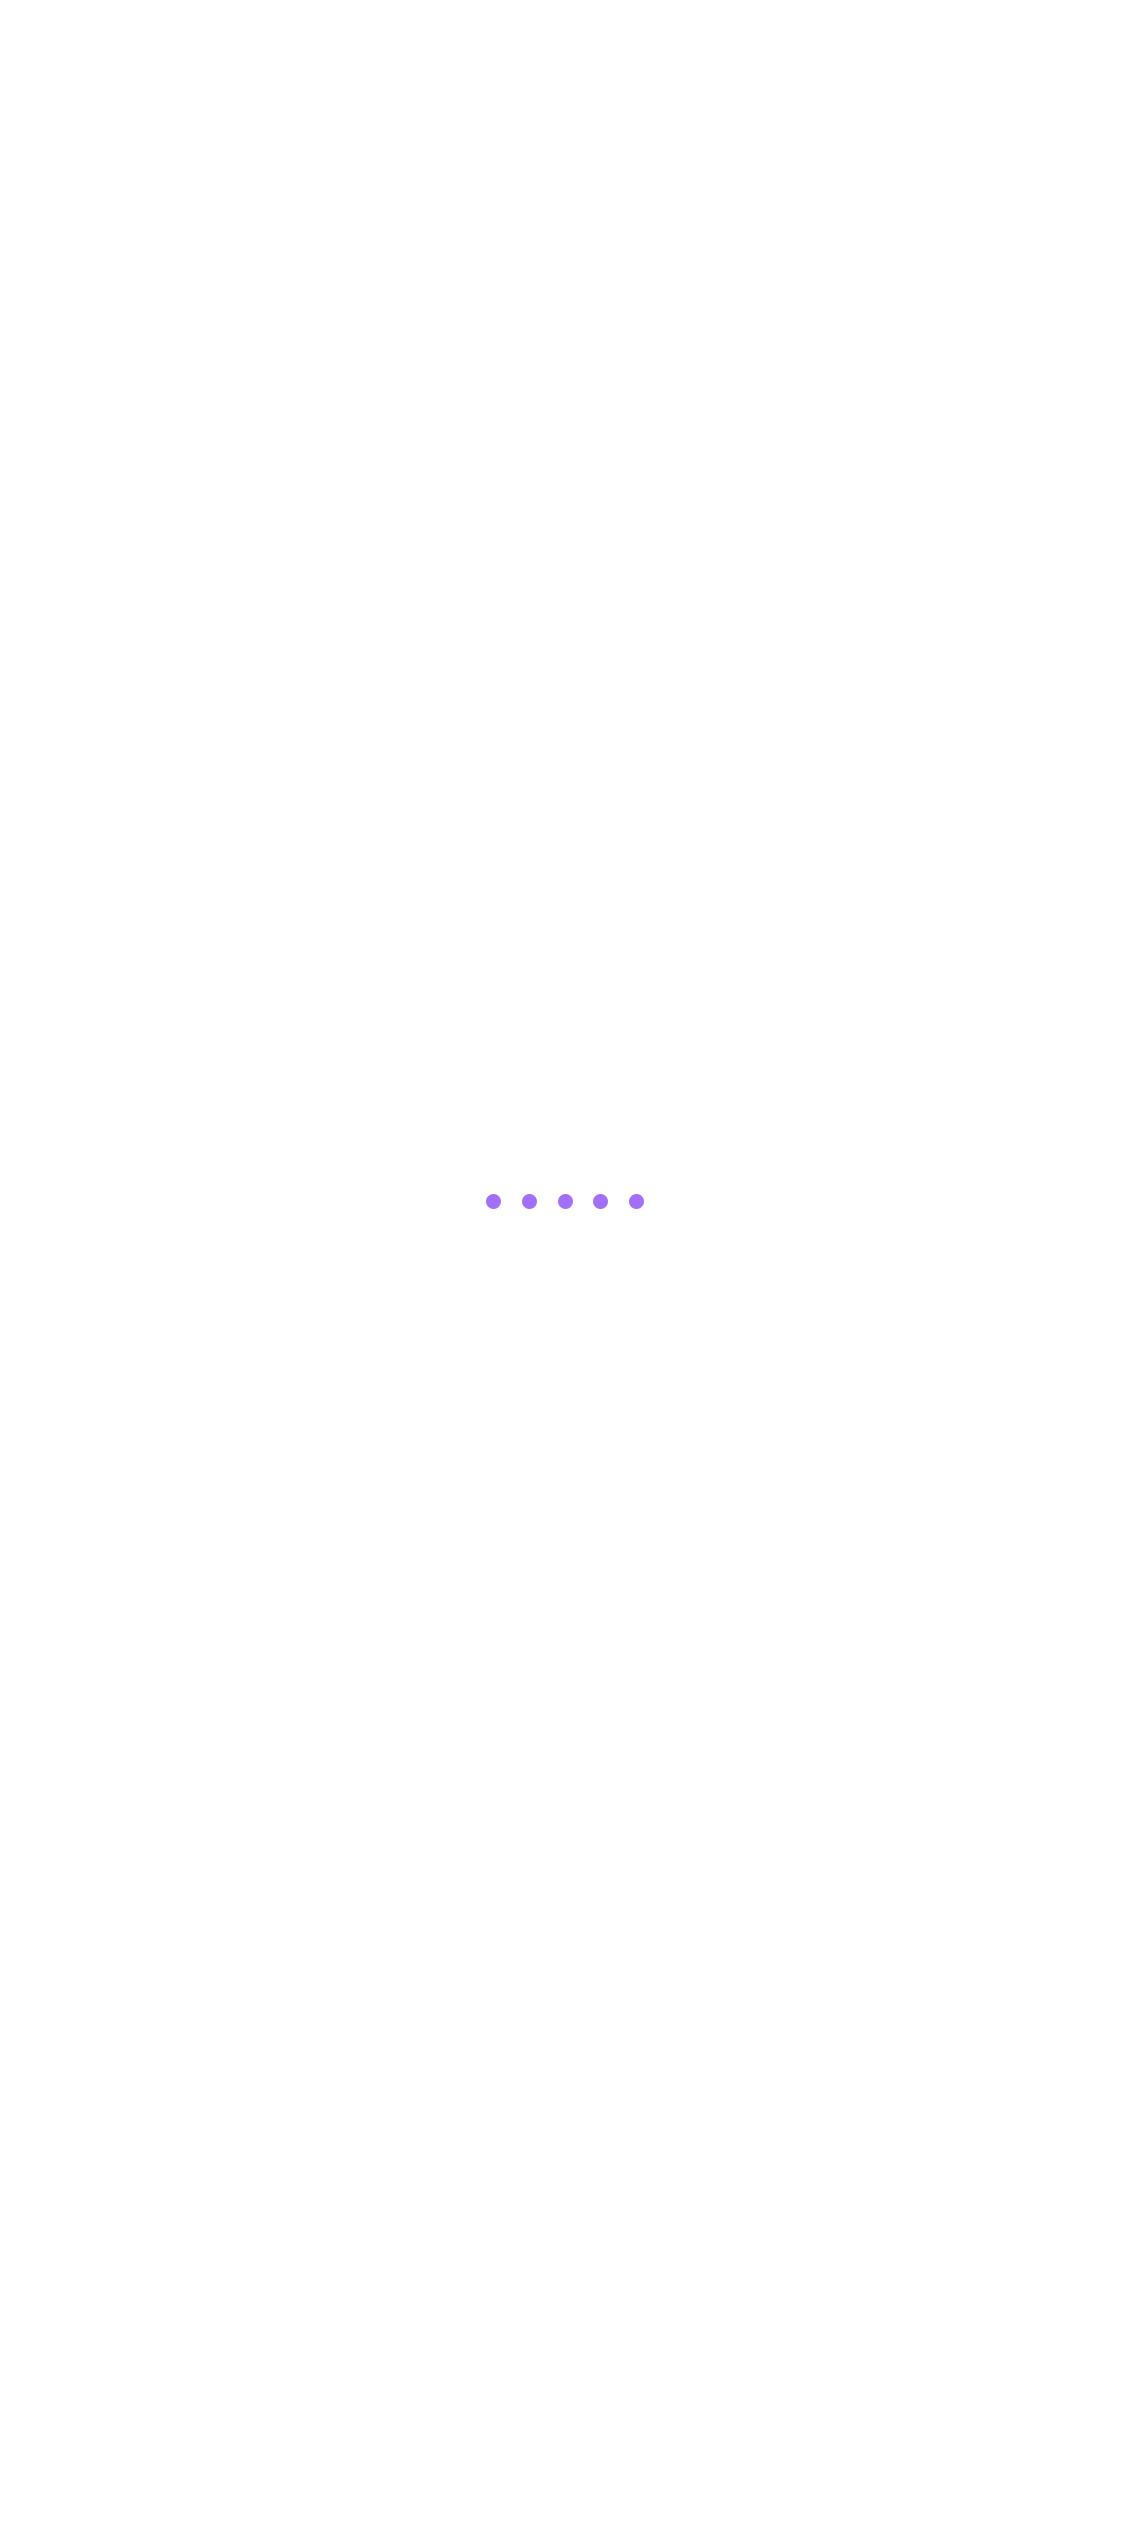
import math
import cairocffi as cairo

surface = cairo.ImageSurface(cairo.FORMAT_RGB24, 1129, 2526)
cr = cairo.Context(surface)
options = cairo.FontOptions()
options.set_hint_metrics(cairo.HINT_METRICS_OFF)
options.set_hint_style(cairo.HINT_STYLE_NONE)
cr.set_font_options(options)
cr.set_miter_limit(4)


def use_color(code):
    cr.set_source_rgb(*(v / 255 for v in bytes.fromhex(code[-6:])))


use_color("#ffffff")
cr.paint()
use_color("#a26ff9")
cr.arc(493.5, 1201.5, 7.5, 0, 2 * math.pi)
cr.fill()
cr.arc(529.5, 1201.5, 7.5, 0, 2 * math.pi)
cr.fill()
cr.arc(565.5, 1201.5, 7.5, 0, 2 * math.pi)
cr.fill()
cr.arc(600.5, 1201.5, 7.5, 0, 2 * math.pi)
cr.fill()
cr.arc(636.5, 1201.5, 7.5, 0, 2 * math.pi)
cr.fill()
surface.write_to_png("result.png")
